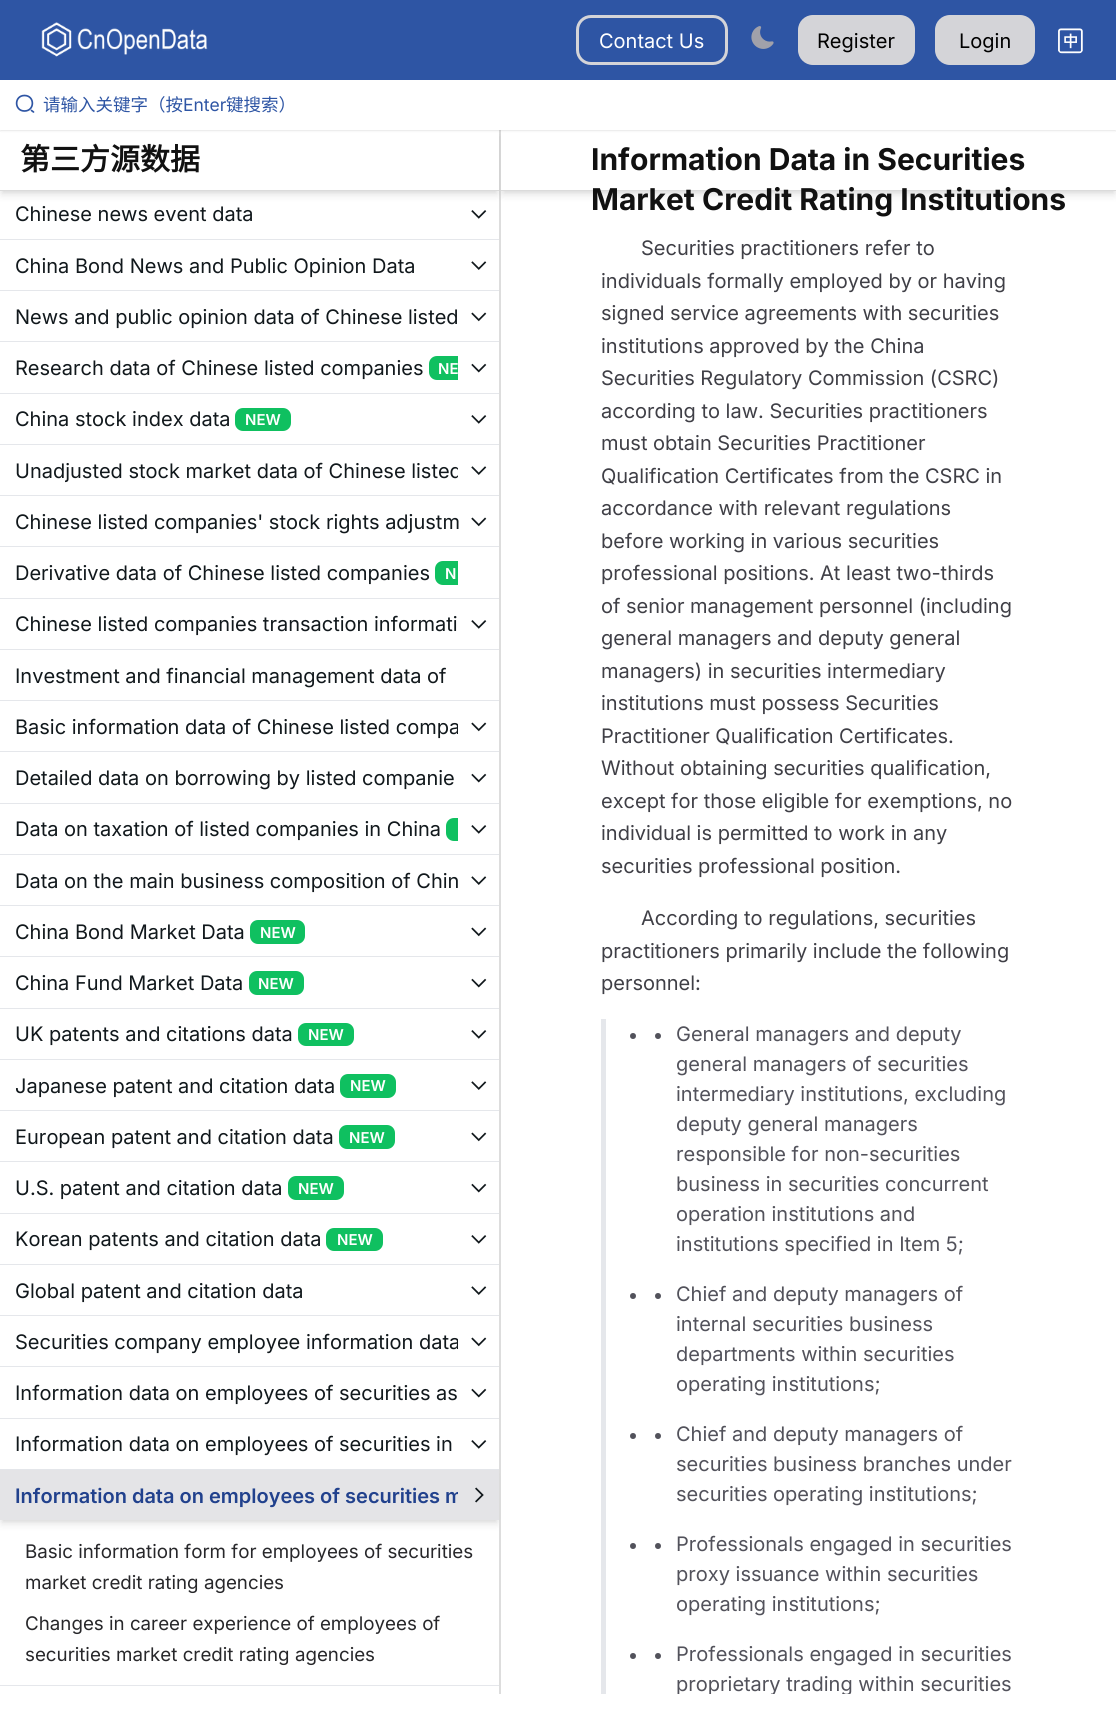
import math
import cairocffi as cairo

surface = cairo.ImageSurface(cairo.FORMAT_RGB24, 1116, 1713)
cr = cairo.Context(surface)
options = cairo.FontOptions()
options.set_hint_metrics(cairo.HINT_METRICS_OFF)
options.set_hint_style(cairo.HINT_STYLE_NONE)
cr.set_font_options(options)
cr.set_miter_limit(4)


def use_color(code):
    cr.set_source_rgb(*(v / 255 for v in bytes.fromhex(code[-6:])))


def round_rect(x, y, w, h, r):
    cr.new_sub_path()
    for i, (u, v) in enumerate([(x + w - r, y + h - r), (x + r, y + h - r), (x + r, y + r), (x + w - r, y + r)]):
        cr.arc(u, v, r, i * math.pi / 2, (i + 1) * math.pi / 2)
    cr.close_path()


def shadow(x, y, w, h, r, blur, alpha):
    cr.push_group_with_content(cairo.CONTENT_ALPHA)
    cr.set_operator(cairo.OPERATOR_SOURCE)
    for i in range(15, -16, -2):
        e = blur * i / 6
        if min(w, h) + 2 * e > 0:
            cr.set_source_rgba(0, 0, 0, alpha * math.erfc((i - 1) / 8.5) / 2)
            round_rect(x - e, y - e, w + 2 * e, h + 2 * e, max(0, min(r + e + blur * .6, min(w, h) / 2 + e)))
            cr.fill()
    cr.mask(cr.pop_group())


def picture(path, x, y, w, h):
    cr.save()
    cr.set_source_surface(cairo.ImageSurface.create_from_png(path), x, y)
    cr.rectangle(x, y, w, h)
    cr.fill()
    cr.restore()


use_color("#ffffff")
cr.paint()
use_color("#2e55a4")
cr.rectangle(0, 0, 1116, 80)
cr.fill()
picture("img1.png", 41, 22, 167, 35)
round_rect(577.5, 16.5, 149, 47, 13.5)
use_color("#d4d4d8")
cr.set_line_width(3)
cr.stroke()
cr.select_font_face("Inter")
cr.set_font_size(20)
use_color("#ffffff")
cr.move_to(599, 48)
cr.show_text("Contact Us")
picture("img2.png", 751, 26, 23, 23)
use_color("#d4d4d8")
round_rect(798, 15, 117, 50, 15)
cr.fill()
use_color("#000000")
cr.move_to(817, 48)
cr.show_text("Register")
use_color("#d4d4d8")
round_rect(935, 15, 100, 50, 15)
cr.fill()
use_color("#000000")
cr.move_to(959, 48)
cr.show_text("Login")
picture("img3.png", 1058, 28, 25, 26)
use_color("#dddddd")
cr.rectangle(499, 130, 2, 1564)
cr.fill()
use_color("#000000")
shadow(3, 135, 493, 56, 0, 2.5, 0.1)
shadow(1, 136, 497, 59, 0, 4, 0.1)
use_color("#ffffff")
cr.rectangle(0, 130, 499, 60)
cr.fill()
use_color("#dbdbdb")
cr.rectangle(0, 190, 499, 1)
cr.fill()
use_color("#000000")
shadow(504, 135, 610, 56, 0, 2.5, 0.1)
cr.save()
cr.rectangle(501, 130, 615, 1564)
cr.clip()
shadow(503, 136, 612, 59, 0, 4, 0.1)
cr.restore()
use_color("#ffffff")
cr.rectangle(501, 130, 615, 60)
cr.fill()
use_color("#000000")
shadow(0, 81, 1116, 50, 0, 1, 0.05)
shadow(0, 81, 1116, 50, 0, 1, 0.05)
use_color("#ffffff")
cr.rectangle(0, 80, 1116, 50)
cr.fill()
cr.new_path()
cr.move_to(24.5, 111)
cr.curve_to(35, 111, 35, 95.5, 24.5, 95.5)
cr.curve_to(14, 95.5, 14, 111, 24.5, 111)
cr.close_path()
cr.move_to(33.5, 112)
cr.line_to(31.5, 110.5)
use_color("#2e55a4")
cr.set_line_width(1.7)
cr.set_line_cap(cairo.LINE_CAP_ROUND)
cr.set_line_join(cairo.LINE_JOIN_ROUND)
cr.stroke()
cr.select_font_face("Noto Sans CJK SC")
cr.set_font_size(17.5)
cr.move_to(43, 111)
cr.show_text("请输入关键字（按")
cr.select_font_face("Inter")
cr.move_to(183, 111)
cr.show_text("Enter")
cr.select_font_face("Noto Sans CJK SC")
cr.move_to(226, 111)
cr.show_text("键搜索）")
cr.select_font_face("Noto Sans CJK SC", cairo.FONT_SLANT_NORMAL, cairo.FONT_WEIGHT_BOLD)
cr.set_font_size(30)
use_color("#111111")
cr.move_to(20, 170)
cr.show_text("第三方源数据")
use_color("#e5e7eb")
cr.rectangle(0, 239, 499, 1)
cr.fill()
cr.select_font_face("Inter")
cr.set_font_size(20)
use_color("#11181c")
cr.move_to(15, 221)
cr.show_text("Chinese news event data")
picture("img4.png", 471, 210, 16, 9)
use_color("#e5e7eb")
cr.rectangle(0, 290, 499, 1)
cr.fill()
use_color("#11181c")
cr.move_to(15, 273)
cr.show_text("China Bond News and Public Opinion Data")
picture("img5.png", 471, 261, 16, 9)
use_color("#e5e7eb")
cr.rectangle(0, 341, 499, 1)
cr.fill()
use_color("#11181c")
cr.move_to(15, 324)
cr.show_text("News and public opinion data of Chinese listed")
picture("img6.png", 471, 312, 16, 10)
use_color("#e5e7eb")
cr.rectangle(0, 393, 499, 1)
cr.fill()
use_color("#11181c")
cr.move_to(15, 375)
cr.show_text("Research data of Chinese listed companies")
use_color("#0fc060")
cr.new_path()
cr.move_to(437, 356)
cr.line_to(458, 356)
cr.line_to(458, 380)
cr.line_to(437, 380)
cr.curve_to(432.5, 380, 429, 376.5, 429, 372)
cr.line_to(429, 364)
cr.curve_to(429, 359.5, 432.5, 356, 437, 356)
cr.close_path()
cr.fill()
cr.save()
cr.rectangle(15, 353, 443, 30)
cr.clip()
cr.select_font_face("Inter SemiBold")
cr.set_font_size(15)
use_color("#ffffff")
cr.move_to(438, 374)
cr.show_text("NE")
cr.restore()
picture("img7.png", 471, 363, 16, 10)
use_color("#e5e7eb")
cr.rectangle(0, 444, 499, 1)
cr.fill()
use_color("#11181c")
cr.move_to(15, 426)
cr.show_text("China stock index data")
use_color("#0fc060")
round_rect(235, 408, 56, 23, 8)
cr.fill()
cr.select_font_face("Inter SemiBold")
cr.set_font_size(15)
use_color("#ffffff")
cr.move_to(245, 425)
cr.show_text("NEW")
picture("img4.png", 471, 415, 16, 9)
use_color("#e5e7eb")
cr.rectangle(0, 495, 499, 1)
cr.fill()
cr.save()
cr.rectangle(15, 455, 443, 30)
cr.clip()
cr.select_font_face("Inter")
cr.set_font_size(20)
use_color("#11181c")
cr.move_to(15, 478)
cr.show_text("Unadjusted stock market data of Chinese listed")
cr.restore()
picture("img5.png", 471, 466, 16, 9)
cr.rectangle(0, 546, 499, 1)
cr.fill()
cr.save()
cr.rectangle(15, 506, 443, 30)
cr.clip()
cr.select_font_face("Inter")
cr.set_font_size(20)
use_color("#11181c")
cr.move_to(15, 529)
cr.show_text("Chinese listed companies' stock rights adjustm")
cr.restore()
picture("img6.png", 471, 517, 16, 10)
cr.rectangle(0, 598, 499, 1)
cr.fill()
cr.select_font_face("Inter")
cr.set_font_size(20)
use_color("#11181c")
cr.move_to(15, 580)
cr.show_text("Derivative data of Chinese listed companies")
use_color("#0fc060")
cr.new_path()
cr.move_to(443, 561)
cr.line_to(458, 561)
cr.line_to(458, 585)
cr.line_to(443, 585)
cr.curve_to(438.5, 585, 435, 581.5, 435, 577)
cr.line_to(435, 569)
cr.curve_to(435, 564.5, 438.5, 561, 443, 561)
cr.close_path()
cr.fill()
cr.select_font_face("Inter SemiBold")
cr.set_font_size(15)
use_color("#ffffff")
cr.move_to(445, 579)
cr.show_text("N")
use_color("#e5e7eb")
cr.rectangle(0, 649, 499, 1)
cr.fill()
cr.select_font_face("Inter")
cr.set_font_size(20)
use_color("#11181c")
cr.move_to(15, 631)
cr.show_text("Chinese listed companies transaction informati")
picture("img4.png", 471, 620, 16, 9)
use_color("#e5e7eb")
cr.rectangle(0, 700, 499, 1)
cr.fill()
use_color("#11181c")
cr.move_to(15, 683)
cr.show_text("Investment and financial management data of")
use_color("#e5e7eb")
cr.rectangle(0, 751, 499, 1)
cr.fill()
cr.save()
cr.rectangle(15, 711, 443, 30)
cr.clip()
use_color("#11181c")
cr.move_to(15, 734)
cr.show_text("Basic information data of Chinese listed compa")
cr.restore()
picture("img6.png", 471, 722, 16, 10)
cr.rectangle(0, 803, 499, 1)
cr.fill()
use_color("#11181c")
cr.move_to(15, 785)
cr.show_text("Detailed data on borrowing by listed companie")
picture("img7.png", 471, 773, 16, 10)
use_color("#e5e7eb")
cr.rectangle(0, 854, 499, 1)
cr.fill()
use_color("#11181c")
cr.move_to(15, 836)
cr.show_text("Data on taxation of listed companies in China")
use_color("#0fc060")
cr.new_path()
cr.move_to(454, 818)
cr.line_to(458, 818)
cr.line_to(458, 841)
cr.line_to(454, 841)
cr.curve_to(449.5, 841, 446, 837.5, 446, 833)
cr.line_to(446, 826)
cr.curve_to(446, 821.5, 449.5, 818, 454, 818)
cr.close_path()
cr.fill()
picture("img4.png", 471, 825, 16, 9)
use_color("#e5e7eb")
cr.rectangle(0, 905, 499, 1)
cr.fill()
use_color("#11181c")
cr.move_to(15, 888)
cr.show_text("Data on the main business composition of Chin")
picture("img5.png", 471, 876, 16, 9)
use_color("#e5e7eb")
cr.rectangle(0, 956, 499, 1)
cr.fill()
use_color("#11181c")
cr.move_to(15, 939)
cr.show_text("China Bond Market Data")
use_color("#0fc060")
round_rect(250, 920, 55, 24, 8)
cr.fill()
cr.select_font_face("Inter SemiBold")
cr.set_font_size(15)
use_color("#ffffff")
cr.move_to(260, 938)
cr.show_text("NEW")
picture("img6.png", 471, 927, 16, 10)
use_color("#e5e7eb")
cr.rectangle(0, 1008, 499, 1)
cr.fill()
cr.select_font_face("Inter")
cr.set_font_size(20)
use_color("#11181c")
cr.move_to(15, 990)
cr.show_text("China Fund Market Data")
use_color("#0fc060")
round_rect(249, 971, 55, 24, 8)
cr.fill()
cr.select_font_face("Inter SemiBold")
cr.set_font_size(15)
use_color("#ffffff")
cr.move_to(258, 989)
cr.show_text("NEW")
picture("img7.png", 471, 978, 16, 10)
use_color("#e5e7eb")
cr.rectangle(0, 1059, 499, 1)
cr.fill()
cr.select_font_face("Inter")
cr.set_font_size(20)
use_color("#11181c")
cr.move_to(15, 1041)
cr.show_text("UK patents and citations data")
use_color("#0fc060")
round_rect(298, 1023, 56, 23, 8)
cr.fill()
cr.select_font_face("Inter SemiBold")
cr.set_font_size(15)
use_color("#ffffff")
cr.move_to(308, 1040)
cr.show_text("NEW")
picture("img4.png", 471, 1030, 16, 9)
use_color("#e5e7eb")
cr.rectangle(0, 1110, 499, 1)
cr.fill()
cr.select_font_face("Inter")
cr.set_font_size(20)
use_color("#11181c")
cr.move_to(15, 1093)
cr.show_text("Japanese patent and citation data")
use_color("#0fc060")
round_rect(340, 1074, 56, 24, 8)
cr.fill()
cr.select_font_face("Inter SemiBold")
cr.set_font_size(15)
use_color("#ffffff")
cr.move_to(350, 1091)
cr.show_text("NEW")
picture("img5.png", 471, 1081, 16, 9)
use_color("#e5e7eb")
cr.rectangle(0, 1161, 499, 1)
cr.fill()
cr.select_font_face("Inter")
cr.set_font_size(20)
use_color("#11181c")
cr.move_to(15, 1144)
cr.show_text("European patent and citation data")
use_color("#0fc060")
round_rect(339, 1125, 56, 24, 8)
cr.fill()
cr.select_font_face("Inter SemiBold")
cr.set_font_size(15)
use_color("#ffffff")
cr.move_to(349, 1143)
cr.show_text("NEW")
picture("img6.png", 471, 1132, 16, 10)
use_color("#e5e7eb")
cr.rectangle(0, 1213, 499, 1)
cr.fill()
cr.select_font_face("Inter")
cr.set_font_size(20)
use_color("#11181c")
cr.move_to(15, 1195)
cr.show_text("U.S. patent and citation data")
use_color("#0fc060")
round_rect(288, 1176, 56, 24, 8)
cr.fill()
cr.select_font_face("Inter SemiBold")
cr.set_font_size(15)
use_color("#ffffff")
cr.move_to(298, 1194)
cr.show_text("NEW")
picture("img7.png", 471, 1183, 16, 10)
use_color("#e5e7eb")
cr.rectangle(0, 1264, 499, 1)
cr.fill()
cr.select_font_face("Inter")
cr.set_font_size(20)
use_color("#11181c")
cr.move_to(15, 1246)
cr.show_text("Korean patents and citation data")
use_color("#0fc060")
round_rect(326, 1228, 57, 23, 8)
cr.fill()
cr.select_font_face("Inter SemiBold")
cr.set_font_size(15)
use_color("#ffffff")
cr.move_to(337, 1245)
cr.show_text("NEW")
picture("img4.png", 471, 1235, 16, 9)
use_color("#e5e7eb")
cr.rectangle(0, 1315, 499, 1)
cr.fill()
cr.select_font_face("Inter")
cr.set_font_size(20)
use_color("#11181c")
cr.move_to(15, 1298)
cr.show_text("Global patent and citation data")
picture("img5.png", 471, 1286, 16, 9)
use_color("#e5e7eb")
cr.rectangle(0, 1366, 499, 1)
cr.fill()
cr.save()
cr.rectangle(15, 1326, 443, 30)
cr.clip()
use_color("#11181c")
cr.move_to(15, 1349)
cr.show_text("Securities company employee information data")
cr.restore()
picture("img6.png", 471, 1337, 16, 10)
cr.rectangle(0, 1418, 499, 1)
cr.fill()
use_color("#11181c")
cr.move_to(15, 1400)
cr.show_text("Information data on employees of securities as")
picture("img7.png", 471, 1388, 16, 10)
use_color("#e5e7eb")
cr.rectangle(0, 1469, 499, 1)
cr.fill()
use_color("#11181c")
cr.move_to(15, 1451)
cr.show_text("Information data on employees of securities in")
picture("img4.png", 471, 1440, 16, 9)
use_color("#e5e7eb")
cr.rectangle(0, 1685, 499, 1)
cr.fill()
use_color("#000000")
shadow(3, 1475, 493, 45, 0, 2.5, 0.1)
cr.save()
cr.rectangle(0, 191, 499, 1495)
cr.clip()
shadow(1, 1476, 497, 48, 0, 4, 0.1)
cr.restore()
use_color("#e4e4e7")
cr.rectangle(0, 1470, 499, 50)
cr.fill()
cr.save()
cr.rectangle(15, 1480, 443, 30)
cr.clip()
cr.select_font_face("Inter SemiBold")
use_color("#21418d")
cr.move_to(15, 1503)
cr.show_text("Information data on employees of securities m")
cr.restore()
picture("img8.png", 475, 1487, 9, 16)
cr.set_font_size(18.75)
use_color("#27272a")
cr.move_to(25, 1558)
cr.show_text("Basic information form for employees of securities")
cr.move_to(25, 1589)
cr.show_text("market credit rating agencies")
cr.move_to(25, 1630)
cr.show_text("Changes in career experience of employees of")
cr.move_to(25, 1661)
cr.show_text("securities market credit rating agencies")
use_color("#dbdbdb")
cr.rectangle(501, 190, 615, 1)
cr.fill()
cr.select_font_face("Inter", cairo.FONT_SLANT_NORMAL, cairo.FONT_WEIGHT_BOLD)
cr.set_font_size(30)
use_color("#111111")
cr.move_to(591, 170)
cr.show_text("Information Data in Securities")
cr.move_to(591, 210)
cr.show_text("Market Credit Rating Institutions")
cr.select_font_face("Inter")
cr.set_font_size(20)
use_color("#3f3f46")
cr.move_to(641, 255)
cr.show_text("Securities practitioners refer to")
cr.move_to(601, 288)
cr.show_text("individuals formally employed by or having")
cr.move_to(601, 320)
cr.show_text("signed service agreements with securities")
cr.move_to(601, 353)
cr.show_text("institutions approved by the China")
cr.move_to(601, 385)
cr.show_text("Securities Regulatory Commission (CSRC)")
cr.move_to(601, 418)
cr.show_text("according to law. Securities practitioners")
cr.move_to(601, 450)
cr.show_text("must obtain Securities Practitioner")
cr.move_to(601, 483)
cr.show_text("Qualification Certificates from the CSRC in")
cr.move_to(601, 515)
cr.show_text("accordance with relevant regulations")
cr.move_to(601, 548)
cr.show_text("before working in various securities")
cr.move_to(601, 580)
cr.show_text("professional positions. At least two-thirds")
cr.move_to(601, 613)
cr.show_text("of senior management personnel (including")
cr.move_to(601, 645)
cr.show_text("general managers and deputy general")
cr.move_to(601, 678)
cr.show_text("managers) in securities intermediary")
cr.move_to(601, 710)
cr.show_text("institutions must possess Securities")
cr.move_to(601, 743)
cr.show_text("Practitioner Qualification Certificates.")
cr.move_to(601, 775)
cr.show_text("Without obtaining securities qualification,")
cr.move_to(601, 808)
cr.show_text("except for those eligible for exemptions, no")
cr.move_to(601, 840)
cr.show_text("individual is permitted to work in any")
cr.move_to(601, 873)
cr.show_text("securities professional position.")
cr.move_to(641, 925)
cr.show_text("According to regulations, securities")
cr.move_to(601, 958)
cr.show_text("practitioners primarily include the following")
cr.move_to(601, 990)
cr.show_text("personnel:")
use_color("#e5e7eb")
cr.rectangle(601, 1019, 5, 675)
cr.fill()
use_color("#52525b")
cr.arc(633, 1036, 3, 0, 2 * math.pi)
cr.fill()
cr.arc(658, 1036, 3, 0, 2 * math.pi)
cr.fill()
cr.move_to(676, 1041)
cr.show_text("General managers and deputy")
cr.move_to(676, 1071)
cr.show_text("general managers of securities")
cr.move_to(676, 1101)
cr.show_text("intermediary institutions, excluding")
cr.move_to(676, 1131)
cr.show_text("deputy general managers")
cr.move_to(676, 1161)
cr.show_text("responsible for non-securities")
cr.move_to(676, 1191)
cr.show_text("business in securities concurrent")
cr.move_to(676, 1221)
cr.show_text("operation institutions and")
cr.move_to(676, 1251)
cr.show_text("institutions specified in Item 5;")
cr.new_path()
cr.arc(633, 1296, 3, 0, 2 * math.pi)
cr.fill()
cr.arc(658, 1296, 3, 0, 2 * math.pi)
cr.fill()
cr.move_to(676, 1301)
cr.show_text("Chief and deputy managers of")
cr.move_to(676, 1331)
cr.show_text("internal securities business")
cr.move_to(676, 1361)
cr.show_text("departments within securities")
cr.move_to(676, 1391)
cr.show_text("operating institutions;")
cr.new_path()
cr.arc(633, 1436, 3, 0, 2 * math.pi)
cr.fill()
cr.arc(658, 1436, 3, 0, 2 * math.pi)
cr.fill()
cr.move_to(676, 1441)
cr.show_text("Chief and deputy managers of")
cr.move_to(676, 1471)
cr.show_text("securities business branches under")
cr.move_to(676, 1501)
cr.show_text("securities operating institutions;")
cr.new_path()
cr.arc(633, 1546, 3, 0, 2 * math.pi)
cr.fill()
cr.arc(658, 1546, 3, 0, 2 * math.pi)
cr.fill()
cr.move_to(676, 1551)
cr.show_text("Professionals engaged in securities")
cr.move_to(676, 1581)
cr.show_text("proxy issuance within securities")
cr.move_to(676, 1611)
cr.show_text("operating institutions;")
cr.new_path()
cr.arc(633, 1656, 3, 0, 2 * math.pi)
cr.fill()
cr.arc(658, 1656, 3, 0, 2 * math.pi)
cr.fill()
cr.move_to(676, 1661)
cr.show_text("Professionals engaged in securities")
cr.save()
cr.rectangle(551, 211, 515, 1483)
cr.clip()
cr.move_to(676, 1691)
cr.show_text("proprietary trading within securities")
cr.restore()
surface.write_to_png("result.png")
